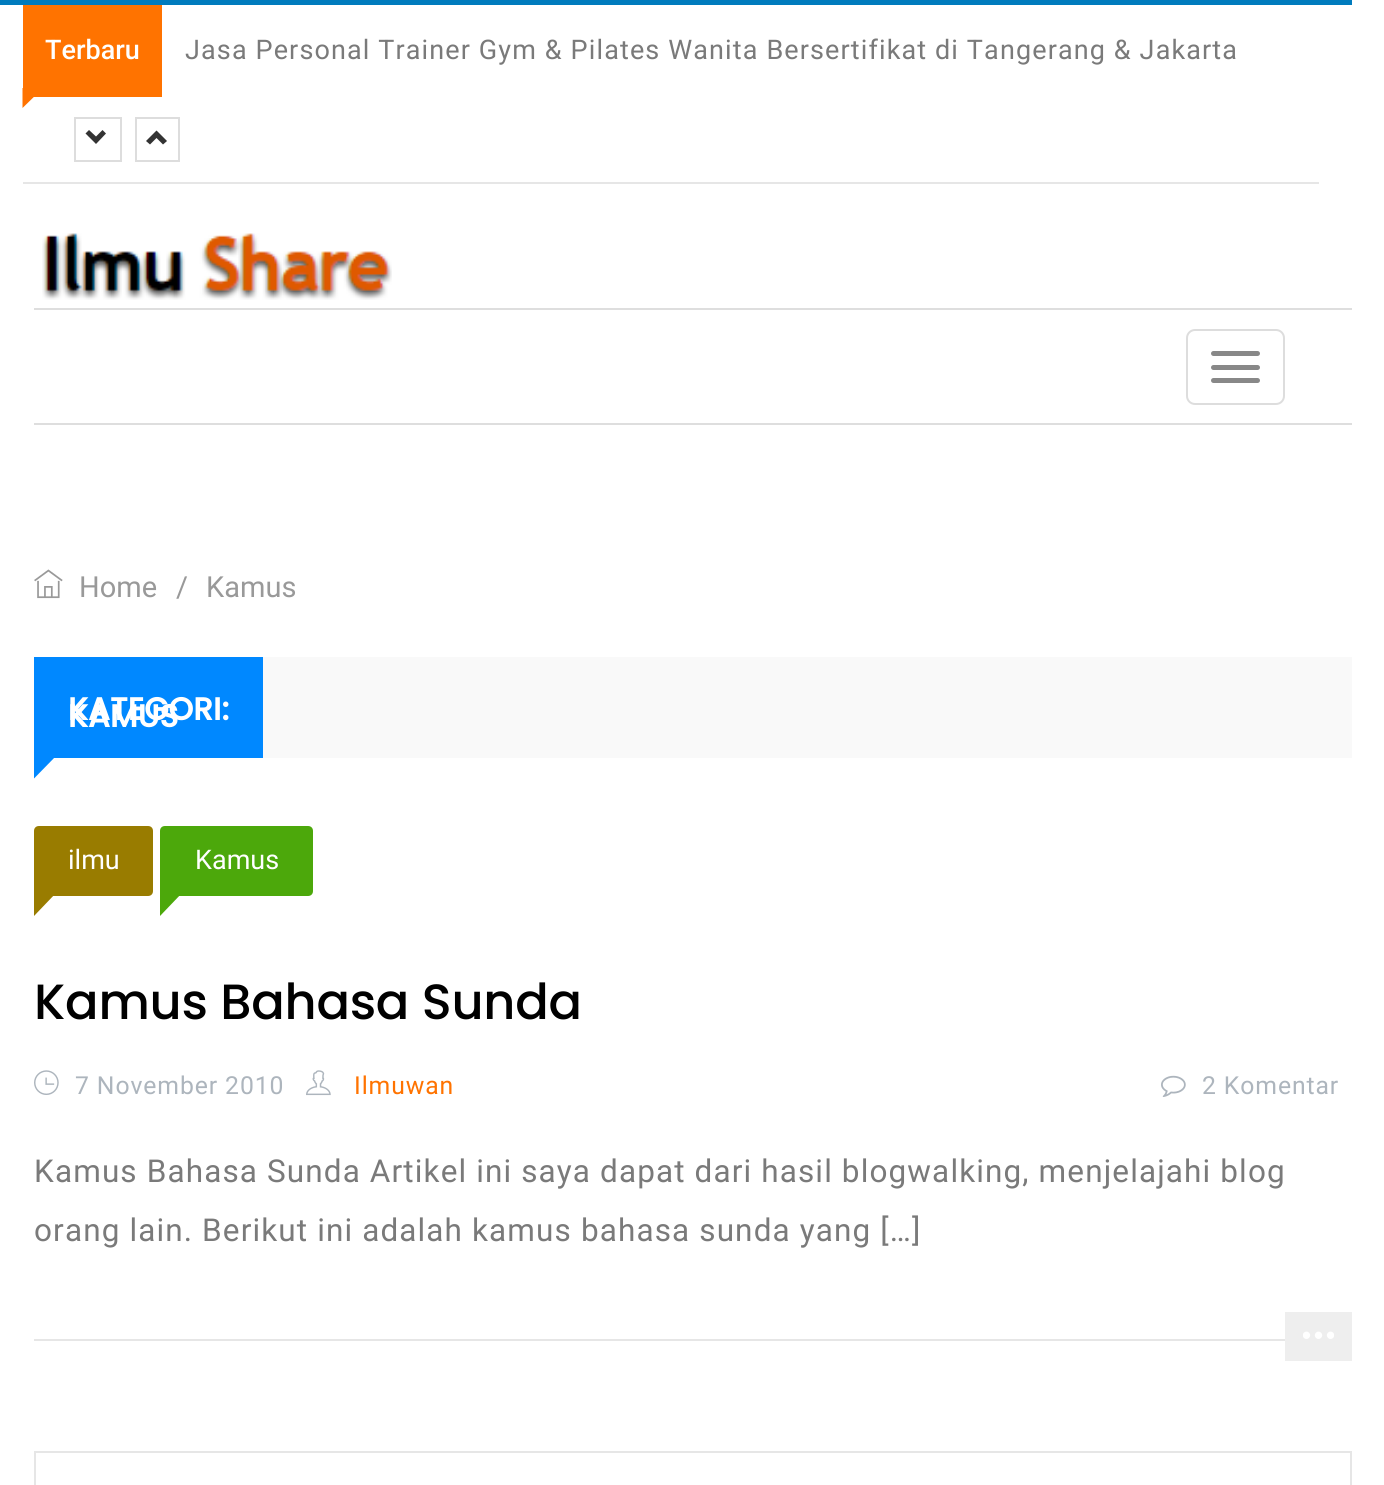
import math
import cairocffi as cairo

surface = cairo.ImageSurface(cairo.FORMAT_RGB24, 1384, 1485)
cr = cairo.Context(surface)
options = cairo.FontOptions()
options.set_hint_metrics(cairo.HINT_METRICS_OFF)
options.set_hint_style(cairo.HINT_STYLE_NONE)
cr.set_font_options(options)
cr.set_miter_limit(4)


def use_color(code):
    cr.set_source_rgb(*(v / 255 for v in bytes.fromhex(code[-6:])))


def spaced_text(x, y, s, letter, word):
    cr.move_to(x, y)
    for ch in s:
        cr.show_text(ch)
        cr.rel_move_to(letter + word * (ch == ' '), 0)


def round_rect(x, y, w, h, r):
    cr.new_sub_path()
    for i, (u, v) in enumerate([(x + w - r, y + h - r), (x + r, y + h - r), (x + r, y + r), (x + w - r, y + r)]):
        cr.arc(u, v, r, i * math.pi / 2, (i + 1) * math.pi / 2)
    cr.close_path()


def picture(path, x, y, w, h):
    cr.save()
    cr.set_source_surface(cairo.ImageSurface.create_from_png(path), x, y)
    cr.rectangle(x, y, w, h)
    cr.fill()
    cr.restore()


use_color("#ffffff")
cr.paint()
use_color("#007bbd")
cr.rectangle(0, 0, 1352, 5)
cr.fill()
use_color("#ff7300")
cr.rectangle(23, 5, 139, 92)
cr.fill()
cr.select_font_face("Roboto Medium")
cr.set_font_size(27)
use_color("#ffffff")
cr.move_to(45, 59)
cr.show_text("Terbaru")
use_color("#ff7300")
cr.new_path()
cr.move_to(22.5, 88)
cr.line_to(43, 88)
cr.line_to(22.5, 108)
cr.close_path()
cr.fill()
cr.select_font_face("Roboto")
use_color("#7a7a7a")
spaced_text(185, 59, "Jasa Personal Trainer Gym & Pilates Wanita Bersertifikat di Tangerang & Jakarta", 1.12, 0)
cr.rectangle(75, 118, 46, 43)
use_color("#dddddd")
cr.stroke()
use_color("#333333")
cr.new_path()
cr.move_to(106, 133.5)
cr.line_to(96, 144)
cr.line_to(85.5, 133.5)
cr.line_to(89, 130)
cr.line_to(96, 136.5)
cr.line_to(102.5, 130)
cr.close_path()
cr.fill()
cr.rectangle(136, 118, 43, 43)
use_color("#dddddd")
cr.stroke()
use_color("#333333")
cr.new_path()
cr.move_to(167, 141)
cr.line_to(163, 144.5)
cr.line_to(156.5, 138)
cr.line_to(150, 144.5)
cr.line_to(146, 141)
cr.line_to(156.5, 130.5)
cr.close_path()
cr.fill()
use_color("#e6e6e6")
cr.rectangle(23, 182, 1296, 2)
cr.fill()
picture("img1.png", 42, 233, 350, 67)
use_color("#dedede")
cr.rectangle(34, 308, 1318, 2)
cr.fill()
cr.rectangle(34, 423, 1318, 2)
cr.fill()
round_rect(1187, 330, 97, 74, 8)
use_color("#dddddd")
cr.stroke()
use_color("#888888")
round_rect(1211, 351, 49, 5, 2.5)
cr.fill()
round_rect(1211, 365, 49, 5, 2.5)
cr.fill()
round_rect(1211, 378, 49, 5, 2.5)
cr.fill()
picture("img2.png", 34, 569, 29, 30)
cr.set_font_size(29)
use_color("#999999")
cr.move_to(79, 597)
cr.show_text("Home")
cr.move_to(176, 597)
cr.show_text("/")
cr.move_to(206, 597)
cr.show_text("Kamus")
use_color("#f9f9f9")
cr.rectangle(263, 657, 1089, 101)
cr.fill()
use_color("#0088ff")
cr.rectangle(34, 657, 229, 101)
cr.fill()
cr.select_font_face("Poppins", cairo.FONT_SLANT_NORMAL, cairo.FONT_WEIGHT_BOLD)
cr.set_font_size(31.5)
use_color("#ffffff")
cr.move_to(68, 720)
cr.show_text("KATEGORI:")
cr.move_to(68, 727)
cr.show_text("KAMUS")
use_color("#0088ff")
cr.new_path()
cr.move_to(34, 756)
cr.line_to(56, 756)
cr.line_to(34, 778.5)
cr.close_path()
cr.fill()
use_color("#997c00")
cr.new_path()
cr.move_to(39, 826)
cr.line_to(148, 826)
cr.curve_to(151, 826, 153, 828, 153, 831)
cr.line_to(153, 891)
cr.curve_to(153, 894, 151, 896, 148, 896)
cr.line_to(34, 896)
cr.line_to(34, 831)
cr.curve_to(34, 828, 36, 826, 39, 826)
cr.close_path()
cr.fill()
cr.select_font_face("Roboto")
cr.set_font_size(27)
use_color("#ffffff")
cr.move_to(68, 869)
cr.show_text("ilmu")
use_color("#997c00")
cr.new_path()
cr.move_to(34, 893)
cr.line_to(56, 893)
cr.line_to(34, 916)
cr.close_path()
cr.fill()
use_color("#4ca80b")
cr.new_path()
cr.move_to(165, 826)
cr.line_to(308, 826)
cr.curve_to(311, 826, 313, 828, 313, 831)
cr.line_to(313, 891)
cr.curve_to(313, 894, 311, 896, 308, 896)
cr.line_to(160, 896)
cr.line_to(160, 831)
cr.curve_to(160, 828, 162, 826, 165, 826)
cr.close_path()
cr.fill()
use_color("#ffffff")
cr.move_to(195, 869)
cr.show_text("Kamus")
use_color("#4ca80b")
cr.new_path()
cr.move_to(160, 893)
cr.line_to(182, 893)
cr.line_to(160, 916)
cr.close_path()
cr.fill()
cr.select_font_face("Poppins Medium")
cr.set_font_size(49.5)
use_color("#000000")
spaced_text(34, 1019, "Kamus Bahasa Sunda", -0.25, 0)
picture("img3.png", 34, 1070, 25, 25)
cr.select_font_face("Roboto")
cr.set_font_size(24.75)
use_color("#adb5bd")
spaced_text(75, 1094, "7 November 2010", 0.9, 0)
picture("img4.png", 306, 1070, 25, 26)
use_color("#ff7300")
spaced_text(354, 1094, "Ilmuwan", 0.9, 0)
picture("img5.png", 1161, 1075, 25, 22)
use_color("#adb5bd")
spaced_text(1202, 1094, "2 Komentar", 0.9, 0)
cr.set_font_size(31.5)
use_color("#7a7a7a")
spaced_text(34, 1182, "Kamus Bahasa Sunda Artikel ini saya dapat dari hasil blogwalking, menjelajahi blog", 1.12, 0)
spaced_text(34, 1241, "orang lain. Berikut ini adalah kamus bahasa sunda yang […]", 1.12, 0)
use_color("#e6e6e6")
cr.rectangle(34, 1339, 1251, 2)
cr.fill()
use_color("#eeeeee")
cr.rectangle(1285, 1312, 67, 49)
cr.fill()
picture("img6.png", 1303, 1331, 31, 8)
cr.rectangle(35, 1452, 1316, 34)
use_color("#e6e6e6")
cr.stroke()
surface.write_to_png("result.png")
